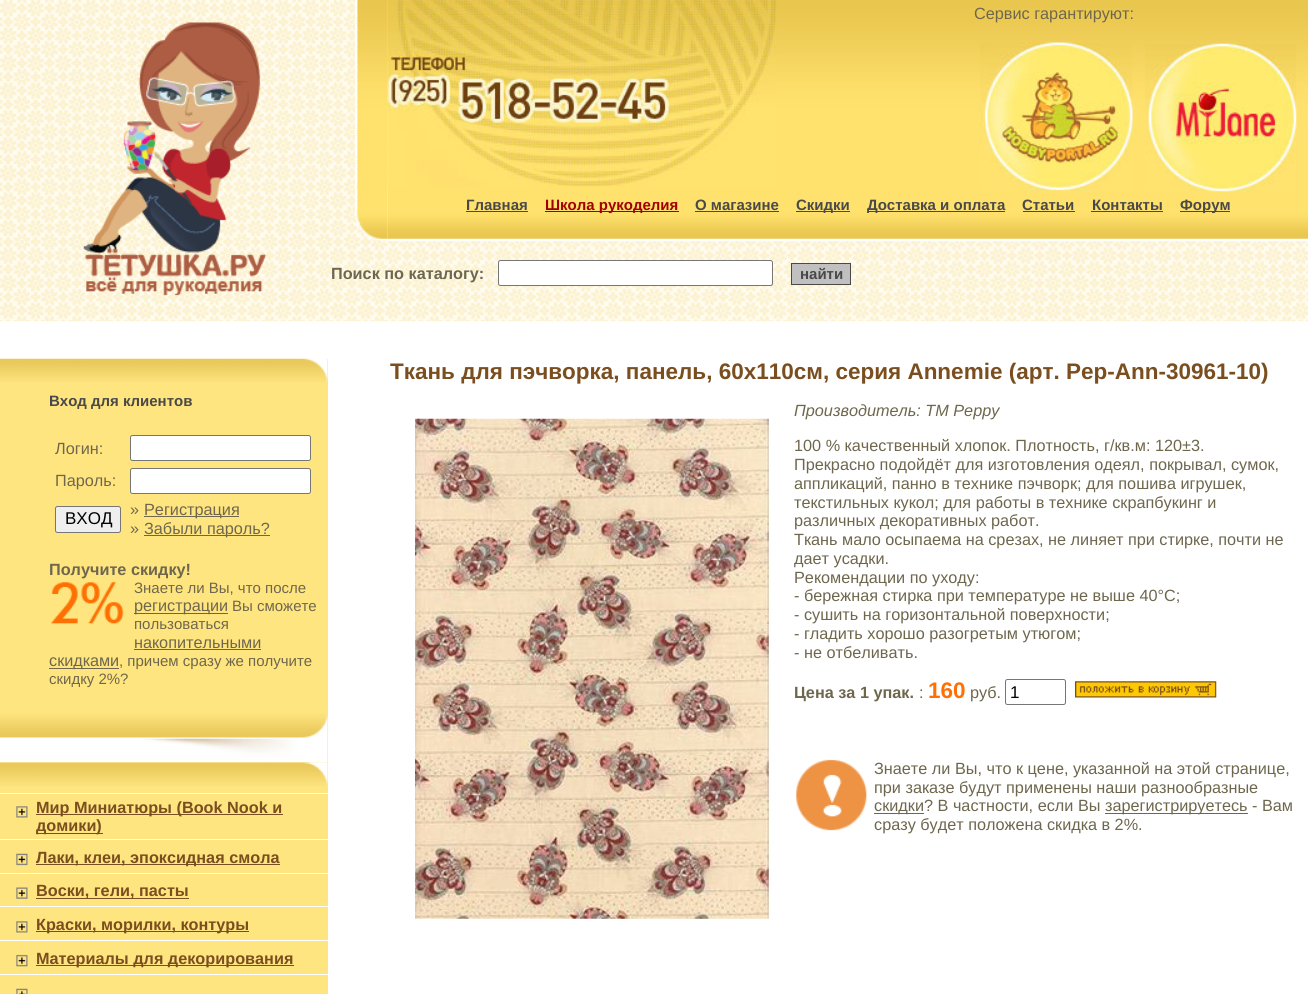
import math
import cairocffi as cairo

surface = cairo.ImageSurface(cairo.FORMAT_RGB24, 1308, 994)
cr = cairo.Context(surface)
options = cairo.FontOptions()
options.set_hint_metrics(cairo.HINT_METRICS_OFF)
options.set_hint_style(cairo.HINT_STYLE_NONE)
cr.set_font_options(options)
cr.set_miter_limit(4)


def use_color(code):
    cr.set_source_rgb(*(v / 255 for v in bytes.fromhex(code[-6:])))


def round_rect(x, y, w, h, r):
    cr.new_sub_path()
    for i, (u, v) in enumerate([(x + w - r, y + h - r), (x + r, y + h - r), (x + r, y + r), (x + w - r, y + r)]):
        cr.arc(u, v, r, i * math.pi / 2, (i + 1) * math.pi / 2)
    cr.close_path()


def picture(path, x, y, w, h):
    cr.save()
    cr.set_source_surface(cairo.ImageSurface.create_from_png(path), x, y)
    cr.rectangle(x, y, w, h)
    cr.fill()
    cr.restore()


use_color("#ffffff")
cr.paint()
picture("img1.png", 0, 0, 1308, 322)
picture("img2.png", 83, 22, 184, 274)
picture("img4.png", 387, 0, 921, 242)
picture("img5.png", 387, 0, 390, 187)
picture("img3.png", 355, 0, 33, 242)
cr.select_font_face("Liberation Sans")
cr.set_font_size(16.25)
use_color("#6e674d")
cr.move_to(974, 19)
cr.show_text("Cервис гарантируют:")
picture("img6.png", 980, 42, 153, 150)
picture("img7.png", 1145, 43, 152, 149)
cr.select_font_face("Liberation Sans", cairo.FONT_SLANT_NORMAL, cairo.FONT_WEIGHT_BOLD)
cr.set_font_size(15)
use_color("#494949")
cr.move_to(466, 210)
cr.show_text("Главная")
cr.rectangle(466, 211, 62, 1)
cr.fill()
use_color("#a00000")
cr.rectangle(545, 211, 134, 1)
cr.fill()
cr.move_to(545, 210)
cr.show_text("Школа рукоделия")
use_color("#494949")
cr.move_to(695, 210)
cr.show_text("О магазине")
cr.rectangle(695, 211, 84, 1)
cr.fill()
cr.rectangle(796, 211, 54, 1)
cr.fill()
cr.move_to(796, 210)
cr.show_text("Скидки")
cr.rectangle(868, 211, 137, 1)
cr.fill()
cr.move_to(867, 210)
cr.show_text("Доставка и оплата")
cr.move_to(1022, 210)
cr.show_text("Статьи")
cr.rectangle(1023, 211, 52, 1)
cr.fill()
cr.move_to(1092, 210)
cr.show_text("Контакты")
cr.rectangle(1091, 211, 72, 1)
cr.fill()
cr.rectangle(1180, 211, 50, 1)
cr.fill()
cr.move_to(1180, 210)
cr.show_text("Форум")
cr.set_font_size(16.25)
use_color("#6e674d")
cr.move_to(331, 279)
cr.show_text("Поиск по каталогу:")
use_color("#ffffff")
round_rect(498.5, 260.5, 274, 25, 2)
cr.fill_preserve()
use_color("#767676")
cr.set_line_width(1)
cr.stroke()
use_color("#c0c0c0")
cr.rectangle(791.5, 263.5, 59, 21)
cr.fill_preserve()
use_color("#494949")
cr.stroke()
cr.set_font_size(15)
cr.move_to(800, 279)
cr.show_text("найти")
use_color("#ffe580")
cr.rectangle(0, 359, 328, 635)
cr.fill()
picture("img8.png", 0, 358, 328, 24)
use_color("#494949")
cr.move_to(49, 406)
cr.show_text("Вход для клиентов")
cr.select_font_face("Liberation Sans")
cr.set_font_size(16.25)
use_color("#6e674d")
cr.move_to(55, 454)
cr.show_text("Логин:")
use_color("#ffffff")
round_rect(130.5, 435.5, 180, 25, 2)
cr.fill_preserve()
use_color("#767676")
cr.stroke()
use_color("#6e674d")
cr.move_to(55, 486)
cr.show_text("Пароль:")
use_color("#ffffff")
round_rect(130.5, 468.5, 180, 25, 2)
cr.fill_preserve()
use_color("#767676")
cr.stroke()
use_color("#efefef")
round_rect(55.5, 506.5, 65, 26, 2)
cr.fill_preserve()
use_color("#767676")
cr.stroke()
cr.set_font_size(17)
use_color("#000000")
cr.move_to(65, 524)
cr.show_text("ВХОД")
cr.set_font_size(16.25)
use_color("#6e674d")
cr.move_to(130, 515)
cr.show_text("»")
cr.rectangle(144, 516, 95, 1)
cr.fill()
cr.move_to(144, 515)
cr.show_text("Регистрация")
cr.move_to(130, 534)
cr.show_text("»")
cr.rectangle(144, 535, 126, 1)
cr.fill()
cr.move_to(144, 534)
cr.show_text("Забыли пароль?")
cr.select_font_face("Liberation Sans", cairo.FONT_SLANT_NORMAL, cairo.FONT_WEIGHT_BOLD)
cr.move_to(49, 575)
cr.show_text("Получите скидку!")
picture("img9.png", 51, 582, 73, 42)
cr.select_font_face("Liberation Sans")
cr.set_font_size(15)
cr.move_to(134, 593)
cr.show_text("Знаете ли Вы, что после")
cr.rectangle(134, 613, 94, 1)
cr.fill()
cr.set_font_size(16.25)
cr.move_to(134, 611)
cr.show_text("регистрации")
cr.set_font_size(15)
cr.move_to(232, 611)
cr.show_text("Вы сможете")
cr.move_to(134, 629)
cr.show_text("пользоваться")
cr.set_font_size(16.25)
cr.move_to(134, 648)
cr.show_text("накопительными")
cr.rectangle(134, 649, 127, 1)
cr.fill()
cr.rectangle(49, 668, 70, 1)
cr.fill()
cr.move_to(49, 666)
cr.show_text("скидками")
cr.set_font_size(15)
cr.move_to(119, 666)
cr.show_text(", причем сразу же получите")
cr.move_to(49, 684)
cr.show_text("скидку 2%?")
picture("img10.png", 0, 714, 328, 49)
picture("img11.png", 0, 762, 328, 24)
use_color("#ffffff")
cr.rectangle(0, 793, 328, 1)
cr.fill()
picture("img12.png", 16, 806, 12, 12)
use_color("#7a4e1f")
cr.rectangle(36, 814, 247, 1)
cr.fill()
cr.select_font_face("Liberation Sans", cairo.FONT_SLANT_NORMAL, cairo.FONT_WEIGHT_BOLD)
cr.set_font_size(16.25)
cr.move_to(36, 813)
cr.show_text("Мир Миниатюры (Book Nook и")
cr.rectangle(36, 833, 67, 1)
cr.fill()
cr.move_to(36, 831)
cr.show_text("домики)")
use_color("#ffffff")
cr.rectangle(0, 839, 328, 1)
cr.fill()
picture("img13.png", 16, 853, 12, 13)
use_color("#7a4e1f")
cr.rectangle(36, 864, 244, 1)
cr.fill()
cr.move_to(36, 863)
cr.show_text("Лаки, клеи, эпоксидная смола")
use_color("#ffffff")
cr.rectangle(0, 873, 328, 1)
cr.fill()
picture("img14.png", 16, 887, 12, 12)
use_color("#7a4e1f")
cr.rectangle(36, 898, 153, 1)
cr.fill()
cr.move_to(36, 896)
cr.show_text("Воски, гели, пасты")
use_color("#ffffff")
cr.rectangle(0, 906, 328, 1)
cr.fill()
picture("img12.png", 16, 921, 12, 12)
use_color("#7a4e1f")
cr.rectangle(36, 931, 213, 1)
cr.fill()
cr.move_to(36, 930)
cr.show_text("Краски, морилки, контуры")
use_color("#ffffff")
cr.rectangle(0, 940, 328, 1)
cr.fill()
picture("img15.png", 16, 954, 12, 13)
use_color("#7a4e1f")
cr.rectangle(36, 965, 258, 1)
cr.fill()
cr.move_to(36, 964)
cr.show_text("Материалы для декорирования")
use_color("#ffffff")
cr.rectangle(0, 974, 328, 1)
cr.fill()
picture("img16.png", 16, 988, 12, 6)
cr.set_font_size(22.5)
use_color("#7a4e1f")
cr.move_to(390, 379)
cr.show_text("Ткань для пэчворка, панель, 60х110см, серия Annemie (арт. Pep-Ann-30961-10)")
cr.select_font_face("Liberation Sans", cairo.FONT_SLANT_ITALIC)
cr.set_font_size(16.25)
use_color("#6e674d")
cr.move_to(794, 416)
cr.show_text("Производитель: ТМ Peppy")
picture("img17.png", 415, 418, 354, 501)
cr.select_font_face("Liberation Sans")
cr.move_to(794, 451)
cr.show_text("100 % качественный хлопок. Плотность, г/кв.м: 120±3.")
cr.move_to(794, 470)
cr.show_text("Прекрасно подойдёт для изготовления одеял, покрывал, сумок,")
cr.move_to(794, 489)
cr.show_text("аппликаций, панно в технике пэчворк; для пошива игрушек,")
cr.move_to(794, 508)
cr.show_text("текстильных кукол; для работы в технике скрапбукинг и")
cr.move_to(794, 526)
cr.show_text("различных декоративных работ.")
cr.move_to(794, 545)
cr.show_text("Ткань мало осыпаема на срезах, не линяет при стирке, почти не")
cr.move_to(794, 564)
cr.show_text("дает усадки.")
cr.move_to(794, 583)
cr.show_text("Рекомендации по уходу:")
cr.move_to(794, 601)
cr.show_text("- бережная стирка при температуре не выше 40°С;")
cr.move_to(794, 620)
cr.show_text("- сушить на горизонтальной поверхности;")
cr.move_to(794, 639)
cr.show_text("- гладить хорошо разогретым утюгом;")
cr.move_to(794, 658)
cr.show_text("- не отбеливать.")
cr.select_font_face("Liberation Sans", cairo.FONT_SLANT_NORMAL, cairo.FONT_WEIGHT_BOLD)
cr.move_to(794, 698)
cr.show_text("Цена за 1 упак.")
cr.select_font_face("Liberation Sans")
cr.move_to(919, 698)
cr.show_text(":")
cr.select_font_face("Liberation Sans", cairo.FONT_SLANT_NORMAL, cairo.FONT_WEIGHT_BOLD)
cr.set_font_size(22.5)
use_color("#ff7004")
cr.move_to(928, 698)
cr.show_text("160")
cr.select_font_face("Liberation Sans")
cr.set_font_size(16.25)
use_color("#6e674d")
cr.move_to(970, 698)
cr.show_text("руб.")
round_rect(1005.5, 679.5, 60, 25, 2)
use_color("#767676")
cr.stroke()
cr.set_font_size(17)
use_color("#000000")
cr.move_to(1010, 698)
cr.show_text("1")
picture("img18.png", 1075, 681, 142, 17)
picture("img19.png", 796, 759, 71, 72)
cr.set_font_size(16.25)
use_color("#6e674d")
cr.move_to(874, 774)
cr.show_text("Знаете ли Вы, что к цене, указанной на этой странице,")
cr.move_to(874, 793)
cr.show_text("при заказе будут применены наши разнообразные")
cr.rectangle(874, 813, 50, 1)
cr.fill()
cr.move_to(874, 811)
cr.show_text("скидки? В частности, если Вы")
cr.rectangle(1105, 813, 143, 1)
cr.fill()
cr.move_to(1105, 811)
cr.show_text("зарегистрируетесь - Вам")
cr.move_to(874, 830)
cr.show_text("сразу будет положена скидка в 2%.")
surface.write_to_png("result.png")
